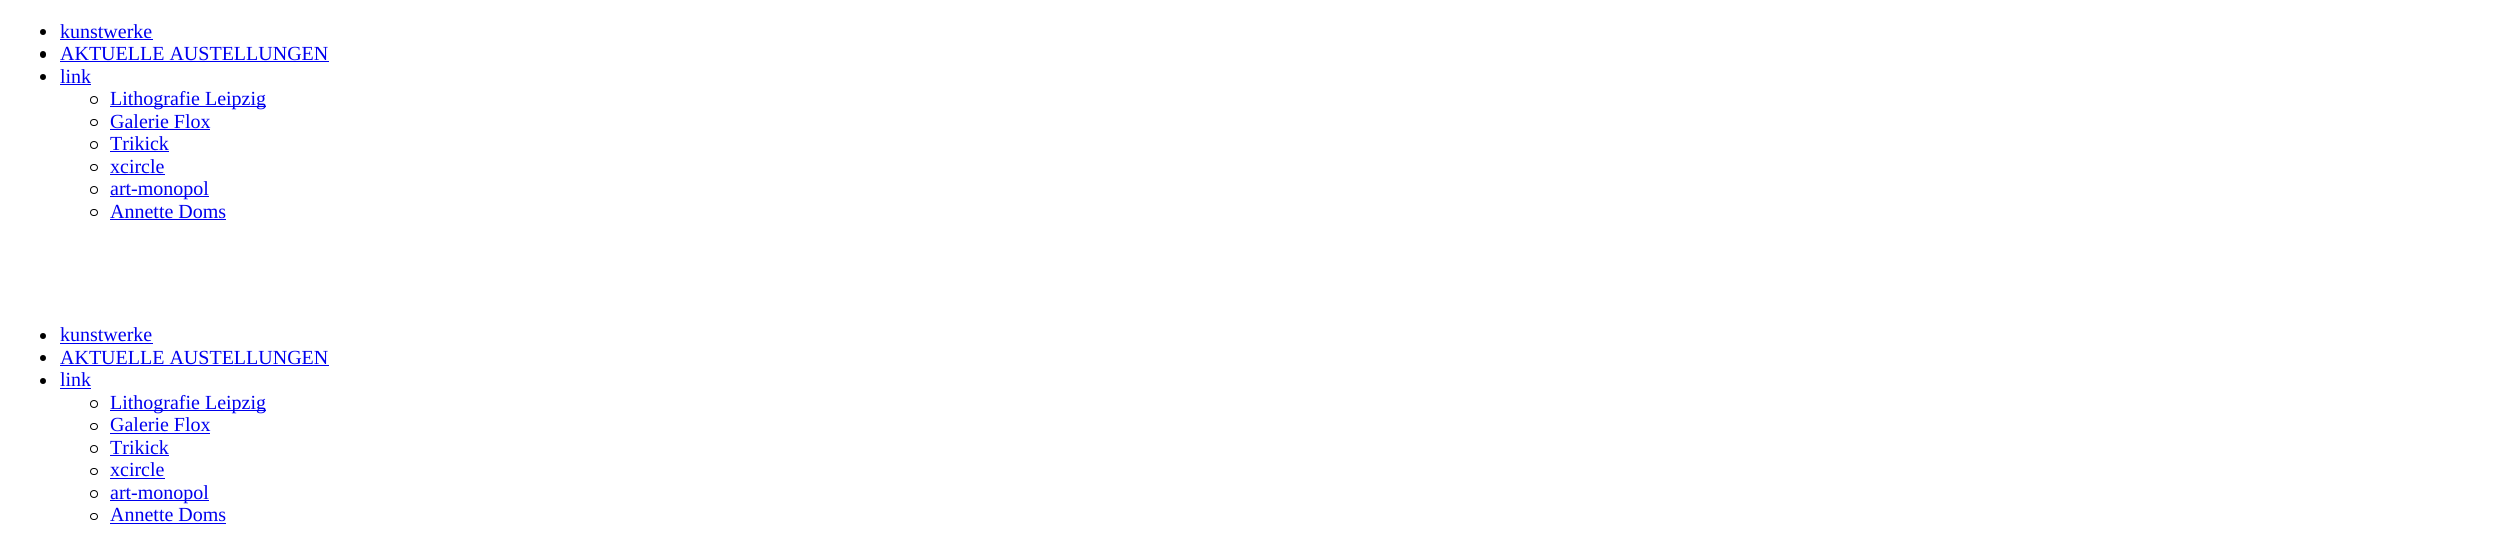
import math
import cairocffi as cairo

surface = cairo.ImageSurface(cairo.FORMAT_RGB24, 2502, 540)
cr = cairo.Context(surface)
options = cairo.FontOptions()
options.set_hint_metrics(cairo.HINT_METRICS_OFF)
options.set_hint_style(cairo.HINT_STYLE_NONE)
cr.set_font_options(options)
cr.set_miter_limit(4)


def use_color(code):
    cr.set_source_rgb(*(v / 255 for v in bytes.fromhex(code[-6:])))


def round_rect(x, y, w, h, r):
    cr.new_sub_path()
    for i, (u, v) in enumerate([(x + w - r, y + h - r), (x + r, y + h - r), (x + r, y + r), (x + w - r, y + r)]):
        cr.arc(u, v, r, i * math.pi / 2, (i + 1) * math.pi / 2)
    cr.close_path()


use_color("#ffffff")
cr.paint()
use_color("#000000")
cr.arc(43, 32, 3, 0, 2 * math.pi)
cr.fill()
cr.select_font_face("Liberation Serif")
cr.set_font_size(20)
use_color("#0000ee")
cr.move_to(60, 38)
cr.show_text("kunstwerke")
cr.rectangle(60, 39, 93, 1)
cr.fill()
use_color("#000000")
round_rect(40, 51, 6, 7, 3)
cr.fill()
use_color("#0000ee")
cr.move_to(60, 60)
cr.show_text("AKTUELLE AUSTELLUNGEN")
cr.rectangle(60, 61, 269, 1)
cr.fill()
use_color("#000000")
cr.arc(43, 77, 3, 0, 2 * math.pi)
cr.fill()
use_color("#0000ee")
cr.move_to(60, 83)
cr.show_text("link")
cr.rectangle(60, 84, 31, 1)
cr.fill()
cr.arc(94, 100, 3.5, 0, 2 * math.pi)
use_color("#000000")
cr.set_line_width(1)
cr.stroke()
use_color("#0000ee")
cr.rectangle(110, 106, 156, 1)
cr.fill()
cr.move_to(110, 105)
cr.show_text("Lithografie Leipzig")
round_rect(90.5, 119.5, 7, 6, 3)
use_color("#000000")
cr.stroke()
use_color("#0000ee")
cr.move_to(110, 128)
cr.show_text("Galerie Flox")
cr.rectangle(110, 129, 100, 1)
cr.fill()
cr.arc(94, 145, 3.5, 0, 2 * math.pi)
use_color("#000000")
cr.stroke()
use_color("#0000ee")
cr.move_to(110, 150)
cr.show_text("Trikick")
cr.rectangle(110, 151, 59, 1)
cr.fill()
round_rect(90.5, 164.5, 7, 6, 3)
use_color("#000000")
cr.stroke()
use_color("#0000ee")
cr.move_to(110, 173)
cr.show_text("xcircle")
cr.rectangle(110, 174, 55, 1)
cr.fill()
cr.arc(94, 190, 3.5, 0, 2 * math.pi)
use_color("#000000")
cr.stroke()
use_color("#0000ee")
cr.rectangle(110, 196, 99, 1)
cr.fill()
cr.move_to(110, 195)
cr.show_text("art-monopol")
round_rect(90.5, 209.5, 7, 6, 3)
use_color("#000000")
cr.stroke()
use_color("#0000ee")
cr.move_to(110, 218)
cr.show_text("Annette Doms")
cr.rectangle(110, 219, 116, 1)
cr.fill()
use_color("#000000")
cr.arc(43, 336, 3, 0, 2 * math.pi)
cr.fill()
use_color("#0000ee")
cr.move_to(60, 341)
cr.show_text("kunstwerke")
cr.rectangle(60, 343, 93, 1)
cr.fill()
use_color("#000000")
cr.arc(43, 358, 3, 0, 2 * math.pi)
cr.fill()
use_color("#0000ee")
cr.move_to(60, 364)
cr.show_text("AKTUELLE AUSTELLUNGEN")
cr.rectangle(60, 365, 269, 1)
cr.fill()
use_color("#000000")
cr.arc(43, 381, 3, 0, 2 * math.pi)
cr.fill()
use_color("#0000ee")
cr.move_to(60, 386)
cr.show_text("link")
cr.rectangle(60, 388, 31, 1)
cr.fill()
cr.arc(94, 404, 3.5, 0, 2 * math.pi)
use_color("#000000")
cr.stroke()
use_color("#0000ee")
cr.rectangle(110, 410, 156, 1)
cr.fill()
cr.move_to(110, 409)
cr.show_text("Lithografie Leipzig")
round_rect(90.5, 423.5, 7, 6, 3)
use_color("#000000")
cr.stroke()
use_color("#0000ee")
cr.move_to(110, 431)
cr.show_text("Galerie Flox")
cr.rectangle(110, 433, 100, 1)
cr.fill()
cr.arc(94, 449, 3.5, 0, 2 * math.pi)
use_color("#000000")
cr.stroke()
use_color("#0000ee")
cr.move_to(110, 454)
cr.show_text("Trikick")
cr.rectangle(110, 455, 59, 1)
cr.fill()
round_rect(90.5, 468.5, 7, 6, 3)
use_color("#000000")
cr.stroke()
use_color("#0000ee")
cr.move_to(110, 476)
cr.show_text("xcircle")
cr.rectangle(110, 478, 55, 1)
cr.fill()
cr.arc(94, 494, 3.5, 0, 2 * math.pi)
use_color("#000000")
cr.stroke()
use_color("#0000ee")
cr.rectangle(110, 500, 99, 1)
cr.fill()
cr.move_to(110, 499)
cr.show_text("art-monopol")
round_rect(90.5, 513.5, 7, 6, 3)
use_color("#000000")
cr.stroke()
use_color("#0000ee")
cr.move_to(110, 521)
cr.show_text("Annette Doms")
cr.rectangle(110, 523, 116, 1)
cr.fill()
surface.write_to_png("result.png")
